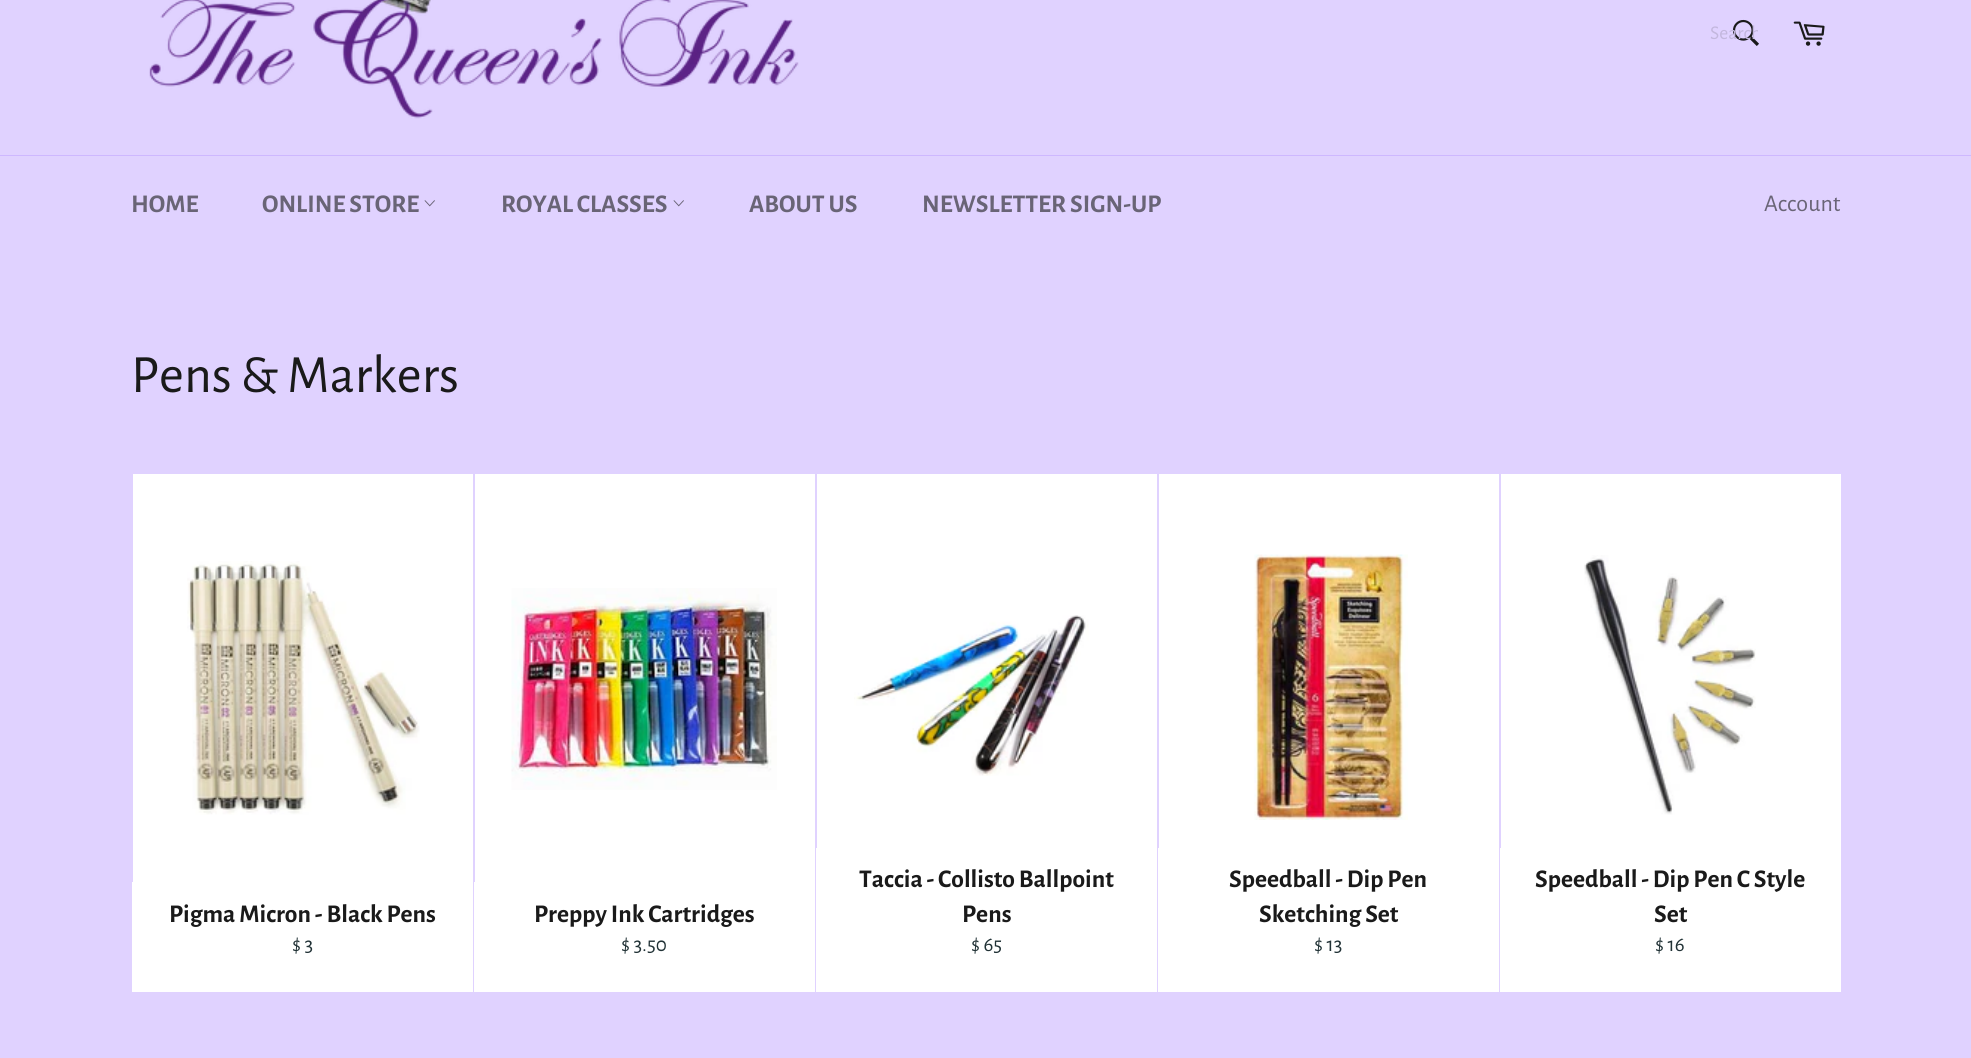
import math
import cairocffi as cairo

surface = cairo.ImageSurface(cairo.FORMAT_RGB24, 1971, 1058)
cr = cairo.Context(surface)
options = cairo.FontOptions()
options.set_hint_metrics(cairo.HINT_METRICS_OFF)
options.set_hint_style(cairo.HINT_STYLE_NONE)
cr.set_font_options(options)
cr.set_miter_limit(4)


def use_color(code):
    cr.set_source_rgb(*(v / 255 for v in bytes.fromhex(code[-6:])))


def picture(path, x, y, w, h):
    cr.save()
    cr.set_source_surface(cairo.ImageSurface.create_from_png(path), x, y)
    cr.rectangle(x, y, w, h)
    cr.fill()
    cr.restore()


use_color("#e0d2ff")
cr.paint()
picture("img1.png", 149, 0, 650, 119)
picture("img2.png", 1732, 19, 27, 27)
cr.save()
cr.rectangle(1710, 23, 48, 24)
cr.clip()
cr.select_font_face("Alegreya Sans")
cr.set_font_size(19.5)
use_color("#c3b7dd")
cr.move_to(1710, 39)
cr.show_text("Search")
cr.restore()
picture("img3.png", 1793, 21, 32, 25)
use_color("#ceb8ff")
cr.rectangle(0, 155, 1971, 1)
cr.fill()
cr.select_font_face("Alegreya Sans", cairo.FONT_SLANT_NORMAL, cairo.FONT_WEIGHT_BOLD)
cr.set_font_size(25.5)
use_color("#696476")
cr.move_to(131, 212)
cr.show_text("HOME")
cr.move_to(262, 212)
cr.show_text("ONLINE STORE")
picture("img4.png", 424, 200, 11, 7)
cr.move_to(501, 212)
cr.show_text("ROYAL CLASSES")
picture("img4.png", 673, 200, 11, 7)
cr.move_to(749, 212)
cr.show_text("ABOUT US")
cr.move_to(922, 212)
cr.show_text("NEWSLETTER SIGN-UP")
cr.select_font_face("Alegreya Sans")
cr.set_font_size(24)
cr.move_to(1764, 211)
cr.show_text("Account")
cr.set_font_size(54)
use_color("#1a1a1a")
cr.move_to(131, 392)
cr.show_text("Pens & Markers")
use_color("#ffffff")
cr.rectangle(133, 474, 340, 408)
cr.fill()
picture("img5.png", 187, 561, 233, 254)
cr.rectangle(132, 882, 341, 110)
cr.fill()
cr.select_font_face("Alegreya Sans", cairo.FONT_SLANT_NORMAL, cairo.FONT_WEIGHT_BOLD)
cr.set_font_size(25.5)
use_color("#1a1a1a")
cr.move_to(169, 922)
cr.show_text("Pigma Micron - Black Pens")
cr.select_font_face("Alegreya Sans")
cr.set_font_size(21)
use_color("#213236")
cr.move_to(292, 951)
cr.show_text("$ 3")
use_color("#ffffff")
cr.rectangle(475, 474, 340, 408)
cr.fill()
picture("img6.png", 511, 588, 266, 202)
cr.rectangle(474, 882, 341, 110)
cr.fill()
cr.select_font_face("Alegreya Sans", cairo.FONT_SLANT_NORMAL, cairo.FONT_WEIGHT_BOLD)
cr.set_font_size(25.5)
use_color("#1a1a1a")
cr.move_to(534, 922)
cr.show_text("Preppy Ink Cartridges")
cr.select_font_face("Alegreya Sans")
cr.set_font_size(21)
use_color("#213236")
cr.move_to(621, 951)
cr.show_text("$ 3.50")
use_color("#ffffff")
cr.rectangle(817, 474, 340, 374)
cr.fill()
picture("img7.png", 854, 615, 235, 161)
cr.rectangle(816, 848, 341, 144)
cr.fill()
cr.select_font_face("Alegreya Sans", cairo.FONT_SLANT_NORMAL, cairo.FONT_WEIGHT_BOLD)
cr.set_font_size(25.5)
use_color("#1a1a1a")
cr.move_to(859, 887)
cr.show_text("Taccia - Collisto Ballpoint")
cr.move_to(962, 922)
cr.show_text("Pens")
cr.select_font_face("Alegreya Sans")
cr.set_font_size(21)
use_color("#213236")
cr.move_to(971, 951)
cr.show_text("$ 65")
use_color("#ffffff")
cr.rectangle(1159, 474, 340, 374)
cr.fill()
picture("img8.png", 1254, 554, 154, 266)
cr.rectangle(1158, 848, 341, 144)
cr.fill()
cr.select_font_face("Alegreya Sans", cairo.FONT_SLANT_NORMAL, cairo.FONT_WEIGHT_BOLD)
cr.set_font_size(25.5)
use_color("#1a1a1a")
cr.move_to(1229, 887)
cr.show_text("Speedball - Dip Pen")
cr.move_to(1259, 922)
cr.show_text("Sketching Set")
cr.select_font_face("Alegreya Sans")
cr.set_font_size(21)
use_color("#213236")
cr.move_to(1314, 951)
cr.show_text("$ 13")
use_color("#ffffff")
cr.rectangle(1501, 474, 340, 374)
cr.fill()
picture("img9.png", 1584, 555, 172, 260)
cr.rectangle(1500, 848, 341, 144)
cr.fill()
cr.select_font_face("Alegreya Sans", cairo.FONT_SLANT_NORMAL, cairo.FONT_WEIGHT_BOLD)
cr.set_font_size(25.5)
use_color("#1a1a1a")
cr.move_to(1535, 887)
cr.show_text("Speedball - Dip Pen C Style")
cr.move_to(1654, 922)
cr.show_text("Set")
cr.select_font_face("Alegreya Sans")
cr.set_font_size(21)
use_color("#213236")
cr.move_to(1655, 951)
cr.show_text("$ 16")
surface.write_to_png("result.png")
